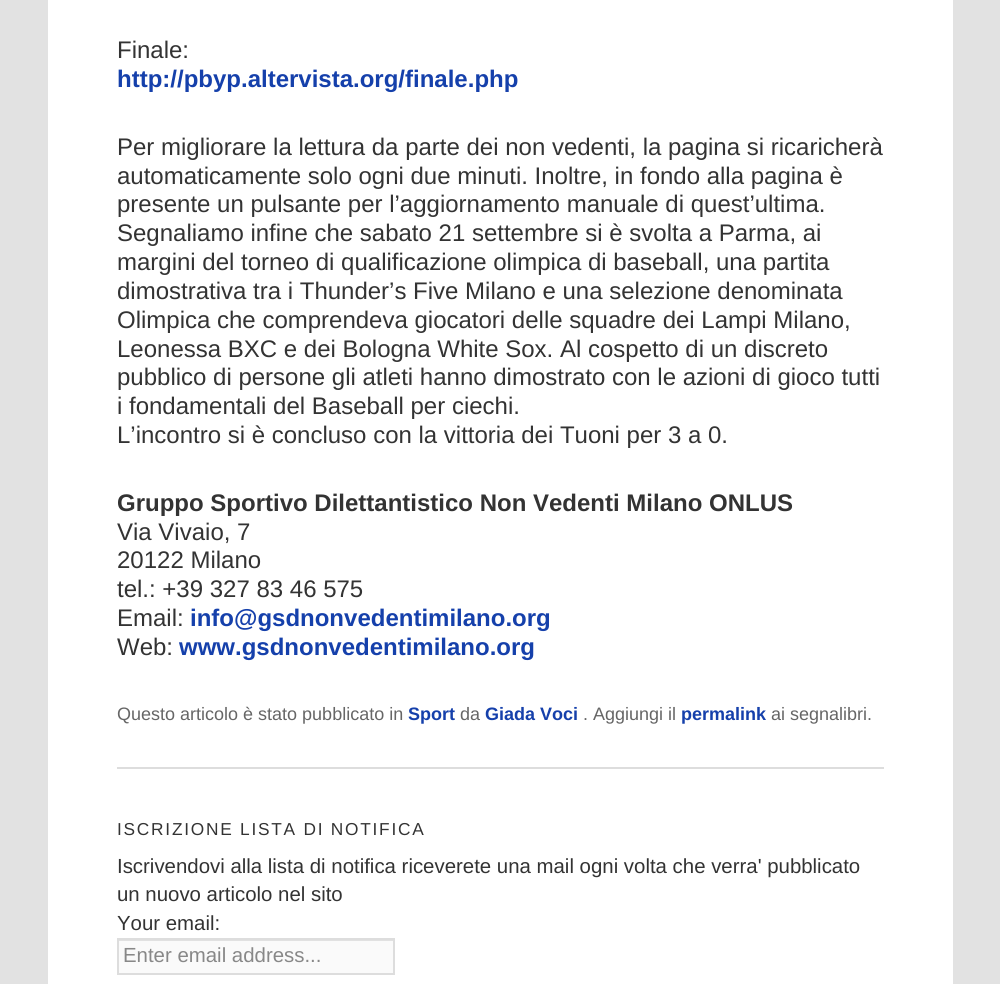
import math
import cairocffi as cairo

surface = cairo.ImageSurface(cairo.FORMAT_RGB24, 1000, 984)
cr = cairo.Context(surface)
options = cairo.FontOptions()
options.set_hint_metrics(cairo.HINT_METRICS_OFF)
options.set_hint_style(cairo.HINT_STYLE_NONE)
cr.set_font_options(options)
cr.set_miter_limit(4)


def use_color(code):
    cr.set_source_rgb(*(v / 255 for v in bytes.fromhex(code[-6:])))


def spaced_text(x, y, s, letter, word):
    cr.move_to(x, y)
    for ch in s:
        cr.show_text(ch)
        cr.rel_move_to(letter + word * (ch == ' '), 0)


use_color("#e2e2e2")
cr.paint()
use_color("#ffffff")
cr.rectangle(48, 0, 905, 984)
cr.fill()
use_color("#dddddd")
cr.rectangle(117, 767, 767, 2)
cr.fill()
cr.select_font_face("Liberation Sans")
cr.set_font_size(24)
use_color("#333333")
cr.move_to(117, 58)
cr.show_text("Finale:")
cr.select_font_face("Liberation Sans", cairo.FONT_SLANT_NORMAL, cairo.FONT_WEIGHT_BOLD)
use_color("#1540ab")
cr.move_to(117, 87)
cr.show_text("http://pbyp.altervista.org/finale.php")
cr.select_font_face("Liberation Sans")
use_color("#333333")
cr.move_to(117, 155)
cr.show_text("Per migliorare la lettura da parte dei non vedenti, la pagina si ricaricherà")
cr.move_to(117, 184)
cr.show_text("automaticamente solo ogni due minuti. Inoltre, in fondo alla pagina è")
cr.move_to(117, 212)
cr.show_text("presente un pulsante per l’aggiornamento manuale di quest’ultima.")
cr.move_to(117, 241)
cr.show_text("Segnaliamo infine che sabato 21 settembre si è svolta a Parma, ai")
cr.move_to(117, 270)
cr.show_text("margini del torneo di qualificazione olimpica di baseball, una partita")
cr.move_to(117, 299)
cr.show_text("dimostrativa tra i Thunder’s Five Milano e una selezione denominata")
cr.move_to(117, 328)
cr.show_text("Olimpica che comprendeva giocatori delle squadre dei Lampi Milano,")
cr.move_to(117, 357)
cr.show_text("Leonessa BXC e dei Bologna White Sox. Al cospetto di un discreto")
cr.move_to(117, 385)
cr.show_text("pubblico di persone gli atleti hanno dimostrato con le azioni di gioco tutti")
cr.move_to(117, 414)
cr.show_text("i fondamentali del Baseball per ciechi.")
cr.move_to(117, 443)
cr.show_text("L’incontro si è concluso con la vittoria dei Tuoni per 3 a 0.")
cr.select_font_face("Liberation Sans", cairo.FONT_SLANT_NORMAL, cairo.FONT_WEIGHT_BOLD)
cr.move_to(117, 511)
cr.show_text("Gruppo Sportivo Dilettantistico Non Vedenti Milano ONLUS")
cr.select_font_face("Liberation Sans")
cr.move_to(117, 540)
cr.show_text("Via Vivaio, 7")
cr.move_to(117, 568)
cr.show_text("20122 Milano")
cr.move_to(117, 597)
cr.show_text("tel.: +39 327 83 46 575")
cr.move_to(117, 626)
cr.show_text("Email:")
cr.select_font_face("Liberation Sans", cairo.FONT_SLANT_NORMAL, cairo.FONT_WEIGHT_BOLD)
use_color("#1540ab")
cr.move_to(190, 626)
cr.show_text("info@gsdnonvedentimilano.org")
cr.select_font_face("Liberation Sans")
use_color("#333333")
cr.move_to(117, 655)
cr.show_text("Web:")
cr.select_font_face("Liberation Sans", cairo.FONT_SLANT_NORMAL, cairo.FONT_WEIGHT_BOLD)
use_color("#1540ab")
cr.move_to(179, 655)
cr.show_text("www.gsdnonvedentimilano.org")
cr.select_font_face("Liberation Sans")
cr.set_font_size(18)
use_color("#666666")
cr.move_to(117, 720)
cr.show_text("Questo articolo è stato pubblicato in")
cr.select_font_face("Liberation Sans", cairo.FONT_SLANT_NORMAL, cairo.FONT_WEIGHT_BOLD)
use_color("#1540ab")
cr.move_to(408, 720)
cr.show_text("Sport")
cr.select_font_face("Liberation Sans")
use_color("#666666")
cr.move_to(460, 720)
cr.show_text("da")
cr.select_font_face("Liberation Sans", cairo.FONT_SLANT_NORMAL, cairo.FONT_WEIGHT_BOLD)
use_color("#1540ab")
cr.move_to(485, 720)
cr.show_text("Giada Voci")
cr.select_font_face("Liberation Sans")
use_color("#666666")
cr.move_to(583, 720)
cr.show_text(". Aggiungi il")
cr.select_font_face("Liberation Sans", cairo.FONT_SLANT_NORMAL, cairo.FONT_WEIGHT_BOLD)
use_color("#1540ab")
cr.move_to(681, 720)
cr.show_text("permalink")
cr.select_font_face("Liberation Sans")
use_color("#666666")
cr.move_to(771, 720)
cr.show_text("ai segnalibri.")
cr.set_font_size(17.3)
use_color("#333333")
spaced_text(117, 835, "ISCRIZIONE LISTA DI NOTIFICA", 1.75, 0)
cr.set_font_size(20.4)
cr.move_to(117, 873)
cr.show_text("Iscrivendovi alla lista di notifica riceverete una mail ogni volta che verra' pubblicato")
cr.move_to(117, 901)
cr.show_text("un nuovo articolo nel sito")
cr.move_to(117, 930)
cr.show_text("Your email:")
use_color("#fafafa")
cr.rectangle(119, 941, 274, 32)
cr.fill()
use_color("#e1e1e1")
cr.rectangle(119, 940, 274, 1)
cr.fill()
cr.rectangle(118, 939, 276, 35)
use_color("#dddddd")
cr.stroke()
use_color("#888888")
cr.move_to(123, 962)
cr.show_text("Enter email address...")
surface.write_to_png("result.png")
